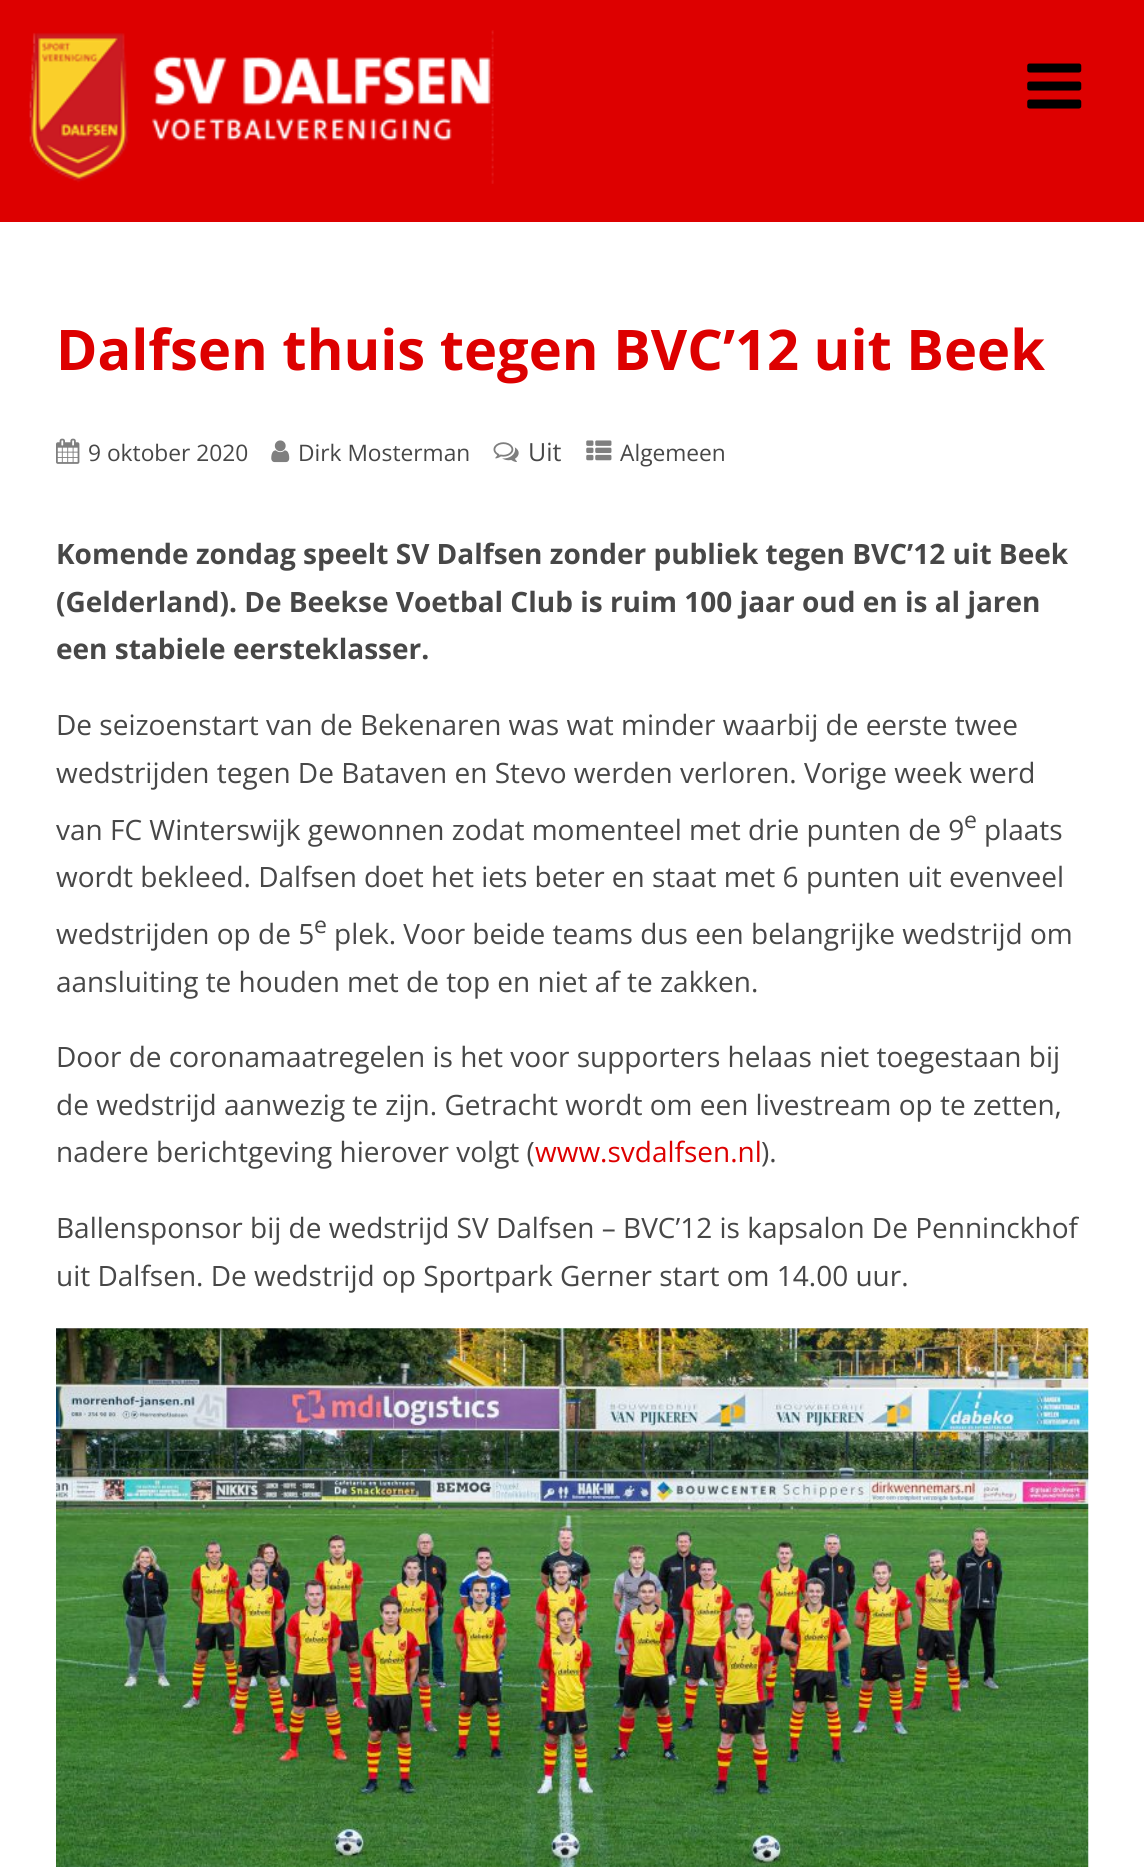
import math
import cairocffi as cairo

surface = cairo.ImageSurface(cairo.FORMAT_RGB24, 1144, 1867)
cr = cairo.Context(surface)
options = cairo.FontOptions()
options.set_hint_metrics(cairo.HINT_METRICS_OFF)
options.set_hint_style(cairo.HINT_STYLE_NONE)
cr.set_font_options(options)
cr.set_miter_limit(4)


def use_color(code):
    cr.set_source_rgb(*(v / 255 for v in bytes.fromhex(code[-6:])))


def picture(path, x, y, w, h):
    cr.save()
    cr.set_source_surface(cairo.ImageSurface.create_from_png(path), x, y)
    cr.rectangle(x, y, w, h)
    cr.fill()
    cr.restore()


use_color("#ffffff")
cr.paint()
use_color("#dd0000")
cr.rectangle(0, 0, 1144, 222)
cr.fill()
picture("img1.png", 29, 30, 465, 154)
picture("img2.png", 1027, 63, 55, 46)
cr.select_font_face("Open Sans", cairo.FONT_SLANT_NORMAL, cairo.FONT_WEIGHT_BOLD)
cr.set_font_size(56)
cr.move_to(56, 370)
cr.show_text("Dalfsen thuis tegen BVC’12 uit Beek")
picture("img3.png", 56, 438, 24, 26)
cr.select_font_face("Open Sans")
cr.set_font_size(22.75)
use_color("#474747")
cr.move_to(88, 461)
cr.show_text("9 oktober 2020")
picture("img4.png", 271, 440, 19, 23)
cr.move_to(298, 461)
cr.show_text("Dirk Mosterman")
picture("img5.png", 493, 442, 26, 20)
cr.set_font_size(25)
cr.move_to(528, 461)
cr.show_text("Uit")
picture("img6.png", 586, 440, 26, 21)
cr.set_font_size(22.75)
cr.move_to(620, 461)
cr.show_text("Algemeen")
cr.select_font_face("Open Sans", cairo.FONT_SLANT_NORMAL, cairo.FONT_WEIGHT_BOLD)
cr.set_font_size(28)
cr.move_to(56, 564)
cr.show_text("Komende zondag speelt SV Dalfsen zonder publiek tegen BVC’12 uit Beek")
cr.move_to(56, 612)
cr.show_text("(Gelderland). De Beekse Voetbal Club is ruim 100 jaar oud en is al jaren")
cr.move_to(56, 659)
cr.show_text("een stabiele eersteklasser.")
cr.select_font_face("Open Sans")
cr.move_to(56, 735)
cr.show_text("De seizoenstart van de Bekenaren was wat minder waarbij de eerste twee")
cr.move_to(56, 783)
cr.show_text("wedstrijden tegen De Bataven en Stevo werden verloren. Vorige week werd")
cr.move_to(56, 840)
cr.show_text("van FC Winterswijk gewonnen zodat momenteel met drie punten de 9")
cr.set_font_size(23)
cr.move_to(964, 828)
cr.show_text("e")
cr.set_font_size(28)
cr.move_to(984, 840)
cr.show_text("plaats")
cr.move_to(56, 887)
cr.show_text("wordt bekleed. Dalfsen doet het iets beter en staat met 6 punten uit evenveel")
cr.move_to(56, 944)
cr.show_text("wedstrijden op de 5")
cr.set_font_size(23)
cr.move_to(314, 933)
cr.show_text("e")
cr.set_font_size(28)
cr.move_to(334, 944)
cr.show_text("plek. Voor beide teams dus een belangrijke wedstrijd om")
cr.move_to(56, 992)
cr.show_text("aansluiting te houden met de top en niet af te zakken.")
cr.move_to(56, 1067)
cr.show_text("Door de coronamaatregelen is het voor supporters helaas niet toegestaan bij")
cr.move_to(56, 1115)
cr.show_text("de wedstrijd aanwezig te zijn. Getracht wordt om een livestream op te zetten,")
cr.move_to(56, 1162)
cr.show_text("nadere berichtgeving hierover volgt (")
use_color("#dd0000")
cr.move_to(535, 1162)
cr.show_text("www.svdalfsen.nl")
use_color("#474747")
cr.move_to(761, 1162)
cr.show_text(").")
cr.move_to(56, 1238)
cr.show_text("Ballensponsor bij de wedstrijd SV Dalfsen – BVC’12 is kapsalon De Penninckhof")
cr.move_to(56, 1286)
cr.show_text("uit Dalfsen. De wedstrijd op Sportpark Gerner start om 14.00 uur.")
picture("img7.png", 56, 1328, 1033, 539)
surface.write_to_png("result.png")
